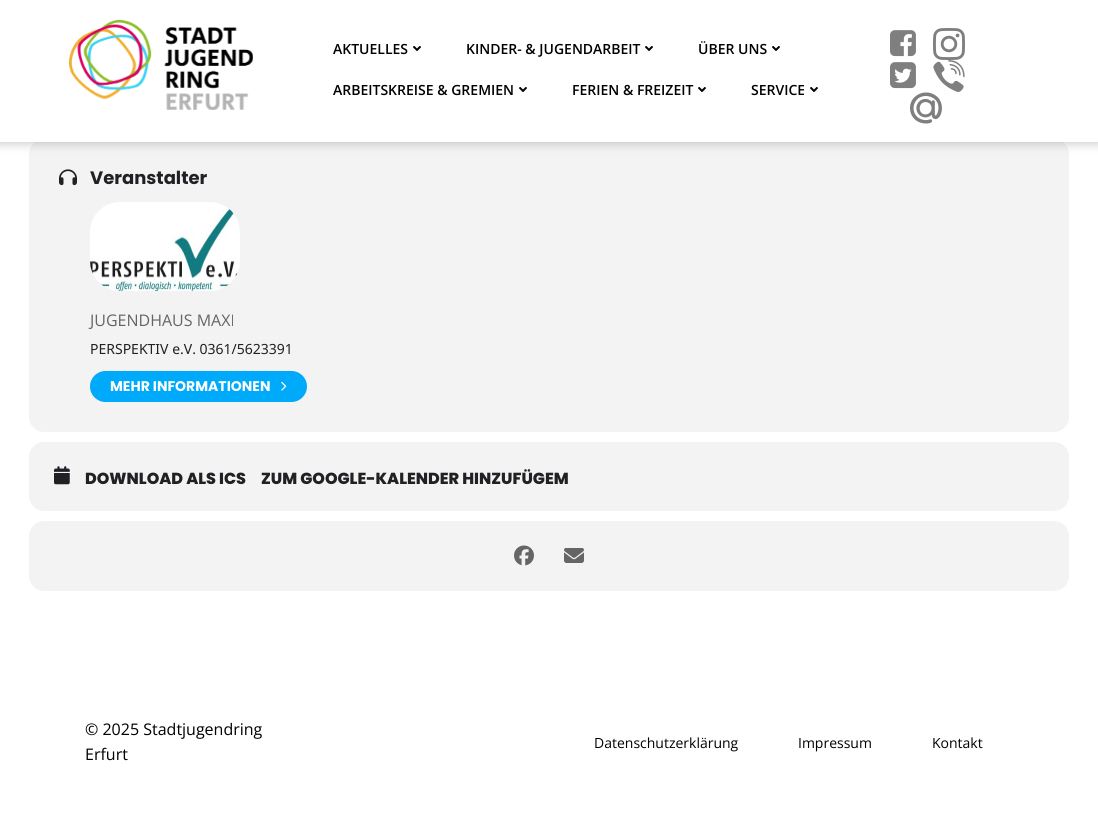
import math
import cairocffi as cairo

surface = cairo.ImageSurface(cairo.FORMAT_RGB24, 1098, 814)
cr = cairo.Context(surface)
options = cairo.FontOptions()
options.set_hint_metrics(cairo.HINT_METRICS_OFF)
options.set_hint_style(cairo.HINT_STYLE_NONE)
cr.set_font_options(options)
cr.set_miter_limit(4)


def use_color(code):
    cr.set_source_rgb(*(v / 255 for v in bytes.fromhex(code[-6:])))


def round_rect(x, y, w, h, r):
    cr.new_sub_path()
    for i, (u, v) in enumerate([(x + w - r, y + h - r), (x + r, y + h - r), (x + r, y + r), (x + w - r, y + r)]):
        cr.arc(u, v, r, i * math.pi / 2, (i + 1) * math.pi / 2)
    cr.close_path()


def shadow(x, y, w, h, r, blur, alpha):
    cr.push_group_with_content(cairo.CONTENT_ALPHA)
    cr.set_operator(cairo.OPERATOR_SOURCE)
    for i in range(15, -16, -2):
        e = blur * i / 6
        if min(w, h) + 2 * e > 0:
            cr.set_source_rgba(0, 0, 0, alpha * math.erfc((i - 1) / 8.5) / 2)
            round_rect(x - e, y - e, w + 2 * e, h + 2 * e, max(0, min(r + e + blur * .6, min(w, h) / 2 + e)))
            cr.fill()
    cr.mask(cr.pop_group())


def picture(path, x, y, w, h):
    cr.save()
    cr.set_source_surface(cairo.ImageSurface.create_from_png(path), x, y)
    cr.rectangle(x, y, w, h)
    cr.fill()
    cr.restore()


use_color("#ffffff")
cr.paint()
use_color("#f3f3f3")
round_rect(29, 139, 1040, 293, 15)
cr.fill()
use_color("#000000")
shadow(-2, -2, 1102, 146, 0, 5, 0.2)
use_color("#ffffff")
cr.rectangle(0, 0, 1098, 142)
cr.fill()
picture("img1.png", 69, 20, 184, 90)
cr.select_font_face("Open Sans SemiBold")
cr.set_font_size(14)
use_color("#000000")
cr.move_to(333, 54)
cr.show_text("AKTUELLES")
picture("img2.png", 413, 46, 8, 5)
cr.move_to(466, 54)
cr.show_text("KINDER- & JUGENDARBEIT")
picture("img2.png", 645, 46, 8, 5)
cr.move_to(698, 54)
cr.show_text("ÜBER UNS")
picture("img2.png", 772, 46, 8, 5)
cr.move_to(333, 95)
cr.show_text("ARBEITSKREISE & GREMIEN")
picture("img2.png", 519, 87, 8, 5)
cr.move_to(572, 95)
cr.show_text("FERIEN & FREIZEIT")
picture("img2.png", 698, 87, 8, 5)
cr.move_to(751, 95)
cr.show_text("SERVICE")
picture("img2.png", 810, 87, 8, 5)
picture("img3.png", 890, 30, 26, 27)
picture("img4.png", 933, 28, 32, 32)
picture("img5.png", 890, 62, 26, 27)
picture("img6.png", 933, 60, 32, 32)
picture("img7.png", 910, 92, 32, 32)
picture("img8.png", 59, 169, 18, 17)
cr.select_font_face("Poppins", cairo.FONT_SLANT_NORMAL, cairo.FONT_WEIGHT_BOLD)
cr.set_font_size(18)
use_color("#202124")
cr.move_to(90, 184)
cr.show_text("Veranstalter")
picture("img9.png", 90, 202, 150, 89)
cr.select_font_face("Open Sans")
cr.set_font_size(16)
use_color("#656565")
cr.move_to(90, 326)
cr.show_text("JUGENDHAUS MAXI")
cr.select_font_face("Noto Sans")
cr.set_font_size(14)
use_color("#202124")
cr.move_to(90, 354)
cr.show_text("PERSPEKTIV e.V. 0361/5623391")
use_color("#00aafb")
round_rect(90, 371, 217, 31, 15.5)
cr.fill()
cr.select_font_face("Poppins", cairo.FONT_SLANT_NORMAL, cairo.FONT_WEIGHT_BOLD)
use_color("#ffffff")
cr.move_to(110, 391)
cr.show_text("MEHR INFORMATIONEN")
picture("img10.png", 281, 381, 6, 10)
use_color("#f3f3f3")
round_rect(29, 442, 1040, 69, 15)
cr.fill()
picture("img11.png", 54, 466, 16, 19)
cr.select_font_face("Poppins ExtraBold")
cr.set_font_size(16)
use_color("#202124")
cr.move_to(85, 484)
cr.show_text("DOWNLOAD ALS ICS")
cr.move_to(261, 484)
cr.show_text("ZUM GOOGLE-KALENDER HINZUFÜGEM")
use_color("#f3f3f3")
round_rect(29, 521, 1040, 70, 15)
cr.fill()
picture("img12.png", 514, 545, 20, 21)
picture("img13.png", 564, 548, 20, 15)
cr.select_font_face("Open Sans")
use_color("#000000")
cr.move_to(85, 735)
cr.show_text("© 2025 Stadtjugendring")
cr.move_to(85, 760)
cr.show_text("Erfurt")
cr.set_font_size(14)
cr.move_to(594, 748)
cr.show_text("Datenschutzerklärung")
cr.move_to(798, 748)
cr.show_text("Impressum")
cr.move_to(932, 748)
cr.show_text("Kontakt")
surface.write_to_png("result.png")
